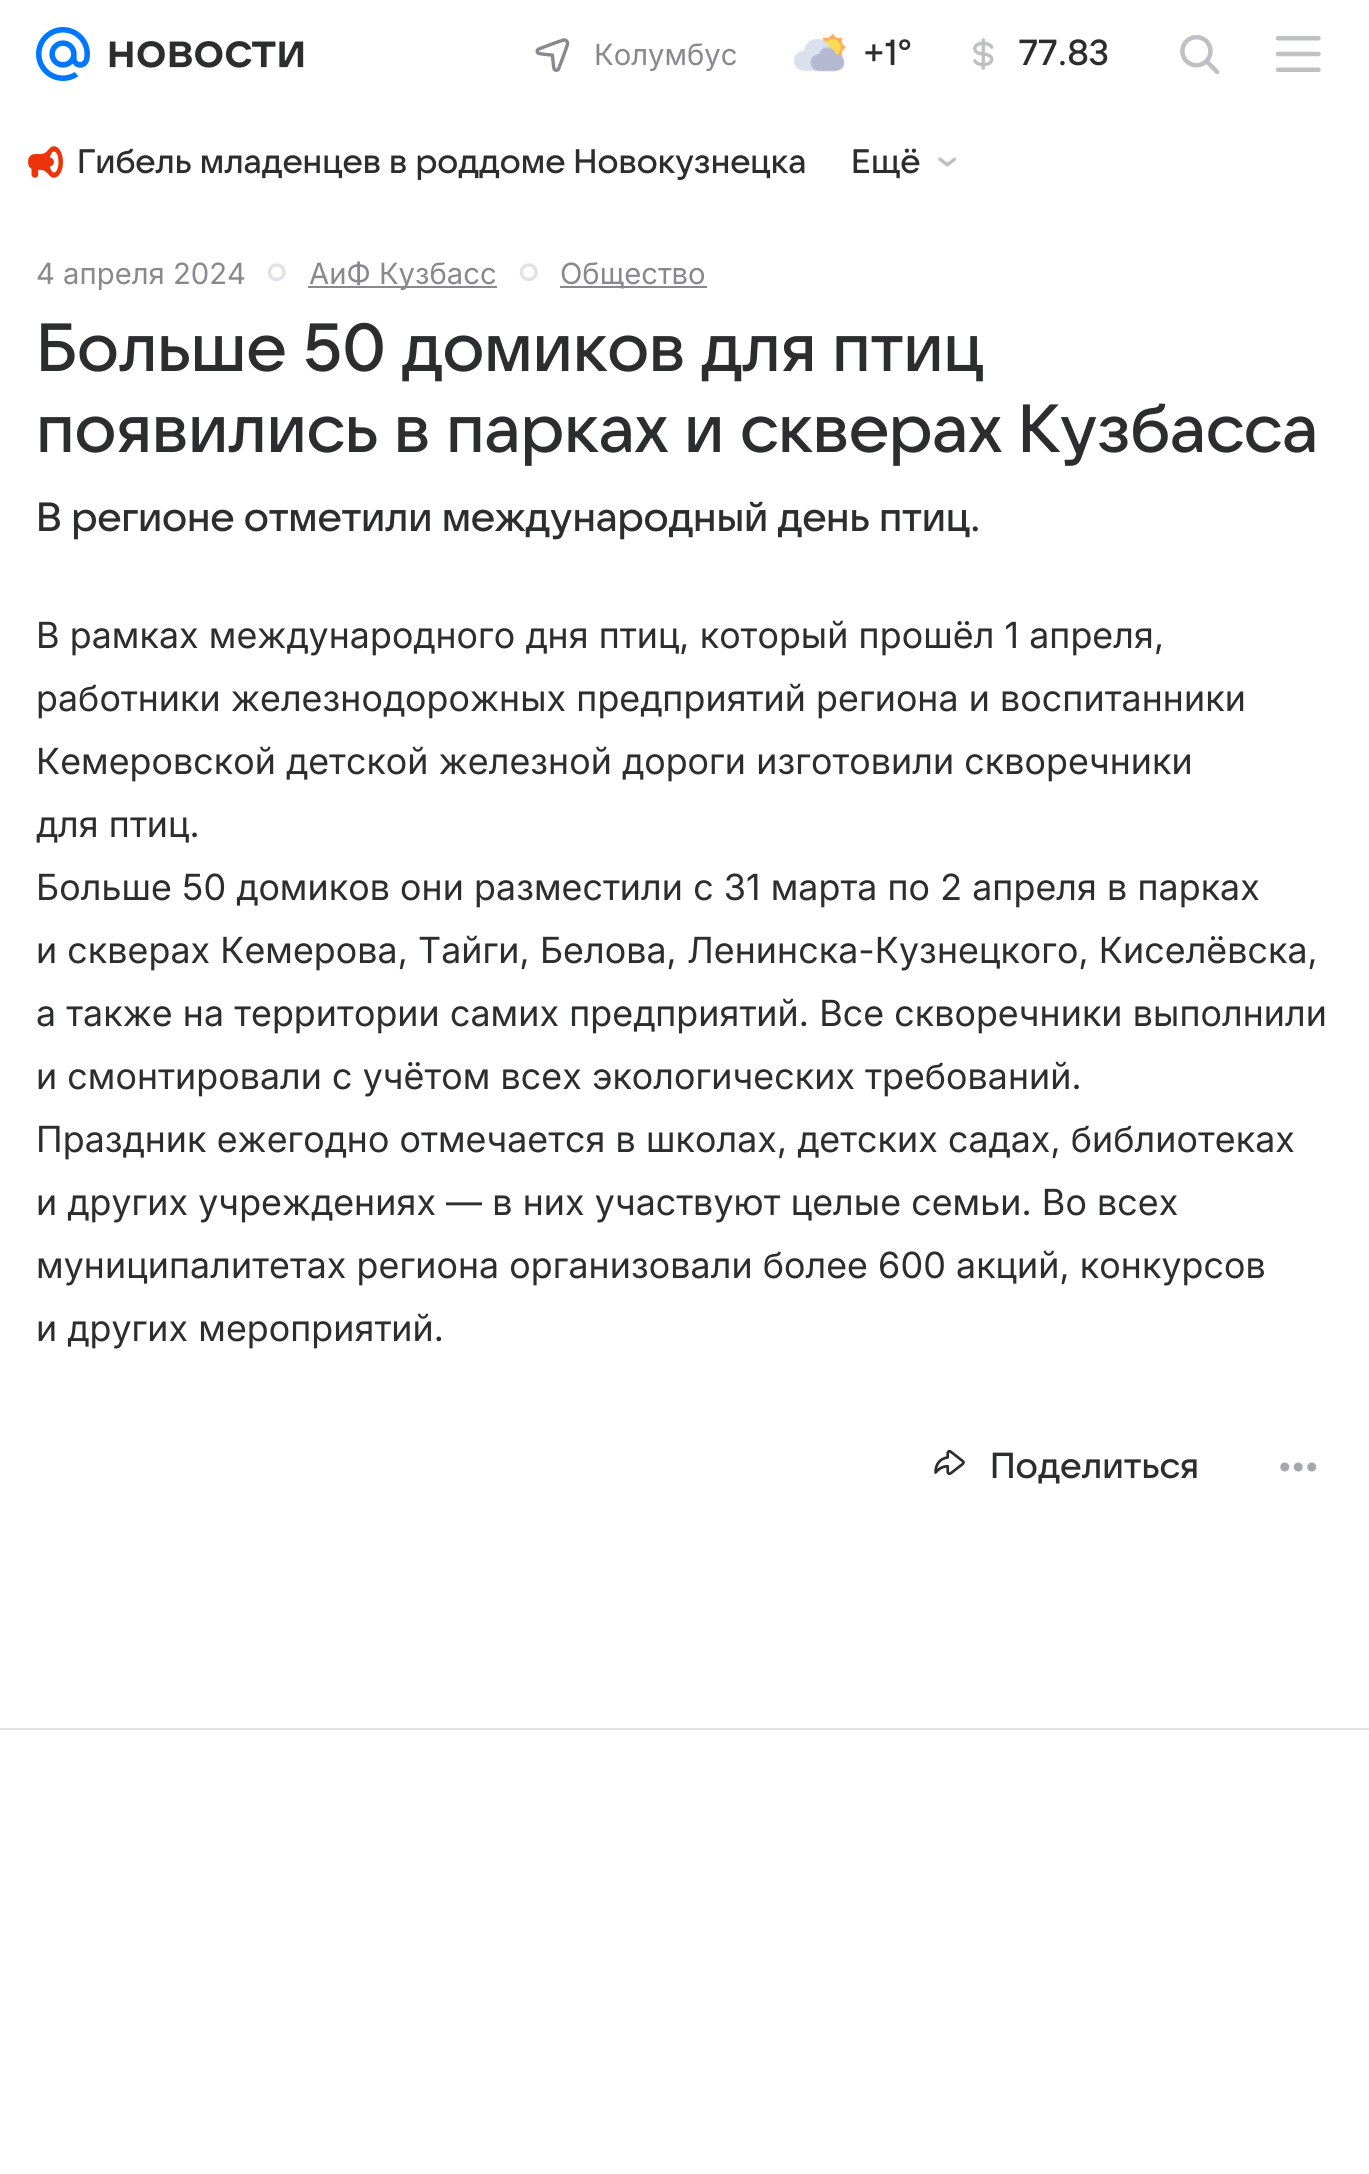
import math
import cairocffi as cairo

surface = cairo.ImageSurface(cairo.FORMAT_RGB24, 1369, 2174)
cr = cairo.Context(surface)
options = cairo.FontOptions()
options.set_hint_metrics(cairo.HINT_METRICS_OFF)
options.set_hint_style(cairo.HINT_STYLE_NONE)
cr.set_font_options(options)
cr.set_miter_limit(4)


def use_color(code):
    cr.set_source_rgb(*(v / 255 for v in bytes.fromhex(code[-6:])))


def spaced_text(x, y, s, letter, word):
    cr.move_to(x, y)
    for ch in s:
        cr.show_text(ch)
        cr.rel_move_to(letter + word * (ch == ' '), 0)


def picture(path, x, y, w, h):
    cr.save()
    cr.set_source_surface(cairo.ImageSurface.create_from_png(path), x, y)
    cr.rectangle(x, y, w, h)
    cr.fill()
    cr.restore()


use_color("#ffffff")
cr.paint()
picture("img1.png", 36, 27, 54, 54)
picture("img2.png", 109, 41, 195, 27)
picture("img3.png", 535, 38, 35, 34)
cr.select_font_face("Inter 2")
cr.set_font_size(29.25)
use_color("#87898f")
cr.move_to(594, 65)
cr.show_text("Колумбус")
picture("img4.png", 793, 33, 53, 39)
cr.select_font_face("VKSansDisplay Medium")
cr.set_font_size(36)
use_color("#2c2d2e")
cr.move_to(863, 65)
cr.show_text("+1°")
picture("img5.png", 973, 38, 21, 32)
cr.move_to(1019, 65)
cr.show_text("77.83")
picture("img6.png", 1180, 34, 40, 41)
picture("img7.png", 1275, 36, 46, 36)
picture("img8.png", 28, 146, 35, 32)
cr.set_font_size(33.75)
cr.move_to(77, 173)
cr.show_text("Гибель младенцев в роддоме Новокузнецка")
cr.move_to(851, 173)
cr.show_text("Ещё")
picture("img9.png", 938, 157, 19, 10)
cr.select_font_face("Inter 2")
cr.set_font_size(29.25)
use_color("#87898f")
cr.move_to(36, 284)
cr.show_text("4 апреля 2024")
picture("img10.png", 267, 263, 19, 19)
cr.rectangle(308, 286, 189, 2)
cr.fill()
cr.move_to(309, 284)
cr.show_text("АиФ Кузбасc")
picture("img10.png", 519, 263, 19, 19)
cr.rectangle(560, 286, 147, 2)
cr.fill()
cr.move_to(560, 284)
cr.show_text("Общество")
cr.select_font_face("VKSansDisplay Medium")
cr.set_font_size(67.5)
use_color("#2c2d2e")
spaced_text(36, 371, "Больше 50 домиков для птиц", -0.35, 0)
spaced_text(36, 452, "появились в парках и скверах Кузбасса", -0.35, 0)
cr.set_font_size(40.5)
spaced_text(36, 531, "В регионе отметили международный день птиц.", -0.2, 0)
cr.select_font_face("Inter")
cr.set_font_size(36)
spaced_text(36, 648, "В рамках международного дня птиц, который прошёл 1 апреля,", 0.1, 0)
spaced_text(36, 711, "работники железнодорожных предприятий региона и воспитанники", 0.1, 0)
spaced_text(36, 774, "Кемеровской детской железной дороги изготовили скворечники", 0.1, 0)
spaced_text(36, 837, "для птиц.", 0.1, 0)
spaced_text(36, 900, "Больше 50 домиков они разместили с 31 марта по 2 апреля в парках", 0.1, 0)
spaced_text(36, 963, "и скверах Кемерова, Тайги, Белова, Ленинска-Кузнецкого, Киселёвска,", 0.1, 0)
spaced_text(36, 1026, "а также на территории самих предприятий. Все скворечники выполнили", 0.1, 0)
spaced_text(36, 1089, "и смонтировали с учётом всех экологических требований.", 0.1, 0)
spaced_text(36, 1152, "Праздник ежегодно отмечается в школах, детских садах, библиотеках", 0.1, 0)
spaced_text(36, 1215, "и других учреждениях — в них участвуют целые семьи. Во всех", 0.1, 0)
spaced_text(36, 1278, "муниципалитетах региона организовали более 600 акций, конкурсов", 0.1, 0)
spaced_text(36, 1341, "и других мероприятий.", 0.1, 0)
picture("img11.png", 934, 1449, 31, 27)
cr.select_font_face("VKSansDisplay Medium")
cr.move_to(990, 1478)
cr.show_text("Поделиться")
picture("img12.png", 1280, 1462, 37, 10)
use_color("#e0e2e8")
cr.rectangle(0, 1728, 1369, 2)
cr.fill()
surface.write_to_png("result.png")
